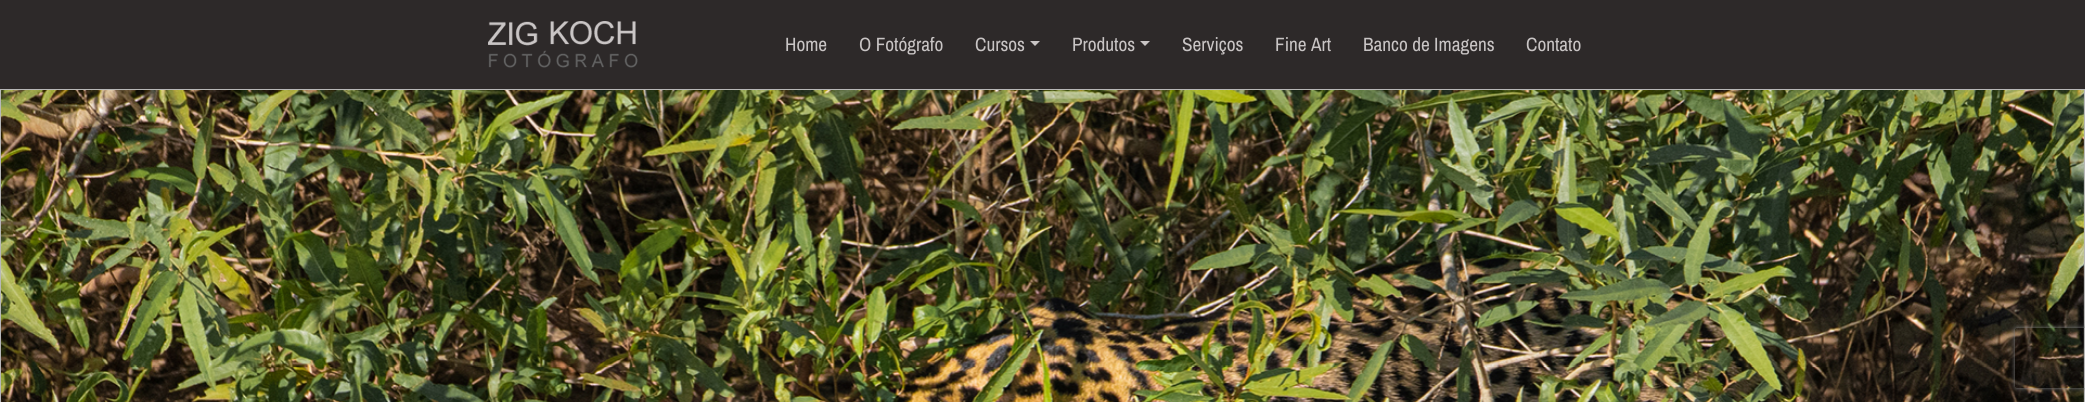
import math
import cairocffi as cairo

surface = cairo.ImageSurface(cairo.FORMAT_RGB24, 2085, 402)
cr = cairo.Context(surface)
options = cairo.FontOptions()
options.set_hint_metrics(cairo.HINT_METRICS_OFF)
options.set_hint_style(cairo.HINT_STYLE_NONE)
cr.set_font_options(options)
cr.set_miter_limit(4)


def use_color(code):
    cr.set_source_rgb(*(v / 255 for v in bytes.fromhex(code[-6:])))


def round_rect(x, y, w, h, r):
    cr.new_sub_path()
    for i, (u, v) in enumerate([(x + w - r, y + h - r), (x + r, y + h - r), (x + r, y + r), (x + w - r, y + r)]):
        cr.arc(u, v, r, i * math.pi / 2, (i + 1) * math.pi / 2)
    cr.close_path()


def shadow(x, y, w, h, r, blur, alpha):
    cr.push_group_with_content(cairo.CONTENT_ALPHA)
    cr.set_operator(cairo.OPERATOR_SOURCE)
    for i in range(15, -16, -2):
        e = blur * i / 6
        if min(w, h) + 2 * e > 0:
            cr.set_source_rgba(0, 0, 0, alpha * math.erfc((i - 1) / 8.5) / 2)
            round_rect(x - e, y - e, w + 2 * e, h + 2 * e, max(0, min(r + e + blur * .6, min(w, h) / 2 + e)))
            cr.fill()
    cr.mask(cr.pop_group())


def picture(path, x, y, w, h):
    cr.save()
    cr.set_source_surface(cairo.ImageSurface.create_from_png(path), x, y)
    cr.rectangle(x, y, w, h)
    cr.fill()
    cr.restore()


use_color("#ffffff")
cr.paint()
use_color("#2d2929")
cr.rectangle(0, 0, 2085, 89)
cr.fill()
picture("img1.png", 488, 21, 150, 47)
cr.select_font_face("Archivo Narrow")
cr.set_font_size(19.25)
use_color("#c9c5c5")
cr.move_to(785, 51)
cr.show_text("Home")
cr.move_to(859, 51)
cr.show_text("O Fotógrafo")
cr.move_to(975, 51)
cr.show_text("Cursos")
cr.new_path()
cr.move_to(1030, 41)
cr.line_to(1040, 41)
cr.line_to(1035, 46)
cr.close_path()
cr.fill()
cr.move_to(1072, 51)
cr.show_text("Produtos")
cr.new_path()
cr.move_to(1140, 41)
cr.line_to(1150, 41)
cr.line_to(1145, 46)
cr.close_path()
cr.fill()
cr.move_to(1182, 51)
cr.show_text("Serviços")
cr.move_to(1275, 51)
cr.show_text("Fine Art")
cr.move_to(1363, 51)
cr.show_text("Banco de Imagens")
cr.move_to(1526, 51)
cr.show_text("Contato")
cr.rectangle(0.5, 89.5, 2084, 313)
use_color("#b7b7b7")
cr.set_line_width(1)
cr.stroke()
picture("img2.png", 1, 90, 2083, 312)
cr.save()
cr.set_fill_rule(cairo.FILL_RULE_EVEN_ODD)
cr.new_path()
cr.move_to(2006, 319)
cr.line_to(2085, 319)
cr.line_to(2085, 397)
cr.line_to(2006, 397)
cr.close_path()
cr.move_to(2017, 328)
cr.line_to(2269, 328)
cr.curve_to(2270, 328, 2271, 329, 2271, 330)
cr.line_to(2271, 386)
cr.curve_to(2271, 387, 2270, 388, 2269, 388)
cr.line_to(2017, 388)
cr.curve_to(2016, 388, 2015, 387, 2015, 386)
cr.line_to(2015, 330)
cr.curve_to(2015, 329, 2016, 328, 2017, 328)
cr.close_path()
cr.clip()
use_color("#808080")
shadow(2015, 328, 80, 60, 2, 2.5, 1)
cr.restore()
surface.write_to_png("result.png")
